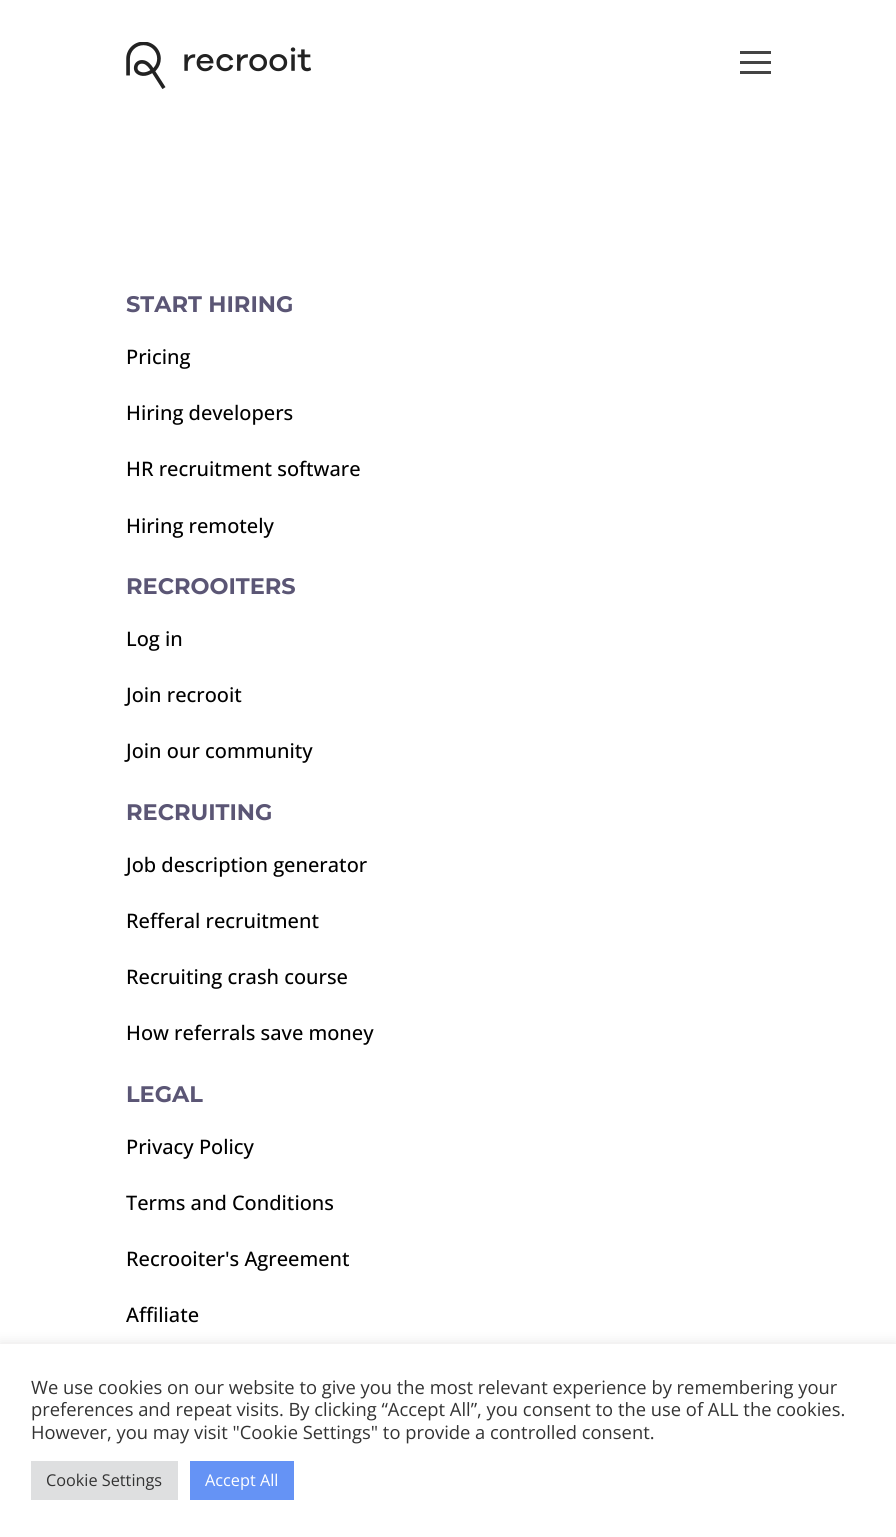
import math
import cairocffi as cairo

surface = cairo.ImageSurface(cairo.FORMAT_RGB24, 896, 1537)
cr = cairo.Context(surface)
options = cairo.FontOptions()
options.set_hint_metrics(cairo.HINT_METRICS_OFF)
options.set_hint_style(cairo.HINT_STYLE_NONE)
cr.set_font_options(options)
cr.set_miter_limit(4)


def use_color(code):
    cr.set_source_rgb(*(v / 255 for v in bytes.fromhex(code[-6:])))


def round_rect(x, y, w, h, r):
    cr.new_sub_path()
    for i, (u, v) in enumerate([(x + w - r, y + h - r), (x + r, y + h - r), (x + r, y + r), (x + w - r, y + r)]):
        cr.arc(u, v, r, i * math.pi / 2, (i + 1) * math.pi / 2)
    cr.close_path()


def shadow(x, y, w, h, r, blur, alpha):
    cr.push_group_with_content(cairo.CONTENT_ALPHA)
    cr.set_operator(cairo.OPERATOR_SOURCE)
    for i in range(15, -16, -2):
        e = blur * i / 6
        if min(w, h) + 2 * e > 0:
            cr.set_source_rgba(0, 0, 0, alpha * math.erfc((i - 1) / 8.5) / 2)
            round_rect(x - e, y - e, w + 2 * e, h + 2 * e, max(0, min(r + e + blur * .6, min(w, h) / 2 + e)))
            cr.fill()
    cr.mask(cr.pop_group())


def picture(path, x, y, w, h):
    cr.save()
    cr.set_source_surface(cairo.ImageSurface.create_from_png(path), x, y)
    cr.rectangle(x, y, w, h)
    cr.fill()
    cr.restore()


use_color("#ffffff")
cr.paint()
picture("img1.png", 126, 42, 185, 47)
use_color("#444444")
cr.rectangle(740, 51, 31, 3)
cr.fill()
cr.rectangle(740, 61, 31, 3)
cr.fill()
cr.rectangle(740, 71, 31, 3)
cr.fill()
cr.select_font_face("Montserrat", cairo.FONT_SLANT_NORMAL, cairo.FONT_WEIGHT_BOLD)
cr.set_font_size(22.5)
use_color("#5b5675")
cr.move_to(126, 312)
cr.show_text("START HIRING")
cr.select_font_face("Open Sans Medium")
cr.set_font_size(20)
use_color("#000000")
cr.move_to(126, 364)
cr.show_text("Pricing")
cr.move_to(126, 420)
cr.show_text("Hiring developers")
cr.move_to(126, 476)
cr.show_text("HR recruitment software")
cr.move_to(126, 533)
cr.show_text("Hiring remotely")
cr.select_font_face("Montserrat", cairo.FONT_SLANT_NORMAL, cairo.FONT_WEIGHT_BOLD)
cr.set_font_size(22.5)
use_color("#5b5675")
cr.move_to(126, 594)
cr.show_text("RECROOITERS")
cr.select_font_face("Open Sans Medium")
cr.set_font_size(20)
use_color("#000000")
cr.move_to(126, 646)
cr.show_text("Log in")
cr.move_to(126, 702)
cr.show_text("Join recrooit")
cr.move_to(126, 758)
cr.show_text("Join our community")
cr.select_font_face("Montserrat", cairo.FONT_SLANT_NORMAL, cairo.FONT_WEIGHT_BOLD)
cr.set_font_size(22.5)
use_color("#5b5675")
cr.move_to(126, 820)
cr.show_text("RECRUITING")
cr.select_font_face("Open Sans Medium")
cr.set_font_size(20)
use_color("#000000")
cr.move_to(126, 872)
cr.show_text("Job description generator")
cr.move_to(126, 928)
cr.show_text("Refferal recruitment")
cr.move_to(126, 984)
cr.show_text("Recruiting crash course")
cr.move_to(126, 1040)
cr.show_text("How referrals save money")
cr.select_font_face("Montserrat", cairo.FONT_SLANT_NORMAL, cairo.FONT_WEIGHT_BOLD)
cr.set_font_size(22.5)
use_color("#5b5675")
cr.move_to(126, 1102)
cr.show_text("LEGAL")
cr.select_font_face("Open Sans Medium")
cr.set_font_size(20)
use_color("#000000")
cr.move_to(126, 1154)
cr.show_text("Privacy Policy")
cr.move_to(126, 1210)
cr.show_text("Terms and Conditions")
cr.move_to(126, 1266)
cr.show_text("Recrooiter's Agreement")
cr.move_to(126, 1322)
cr.show_text("Affiliate")
use_color("#acabab")
shadow(0, 1343, 896, 193, 0, 6, 0.3)
use_color("#ffffff")
cr.rectangle(0, 1344, 896, 193)
cr.fill()
cr.select_font_face("Open Sans")
cr.set_font_size(18.35)
use_color("#333333")
cr.move_to(31, 1394)
cr.show_text("We use cookies on our website to give you the most relevant experience by remembering your")
cr.move_to(31, 1416)
cr.show_text("preferences and repeat visits. By clicking “Accept All”, you consent to the use of ALL the cookies.")
cr.move_to(31, 1439)
cr.show_text("However, you may visit \"Cookie Settings\" to provide a controlled consent.")
use_color("#dedfe0")
cr.rectangle(31, 1461, 147, 39)
cr.fill()
cr.set_font_size(16.25)
use_color("#333333")
cr.move_to(46, 1486)
cr.show_text("Cookie Settings")
use_color("#6593f5")
cr.rectangle(190, 1461, 104, 39)
cr.fill()
use_color("#ffffff")
cr.move_to(205, 1486)
cr.show_text("Accept All")
surface.write_to_png("result.png")
